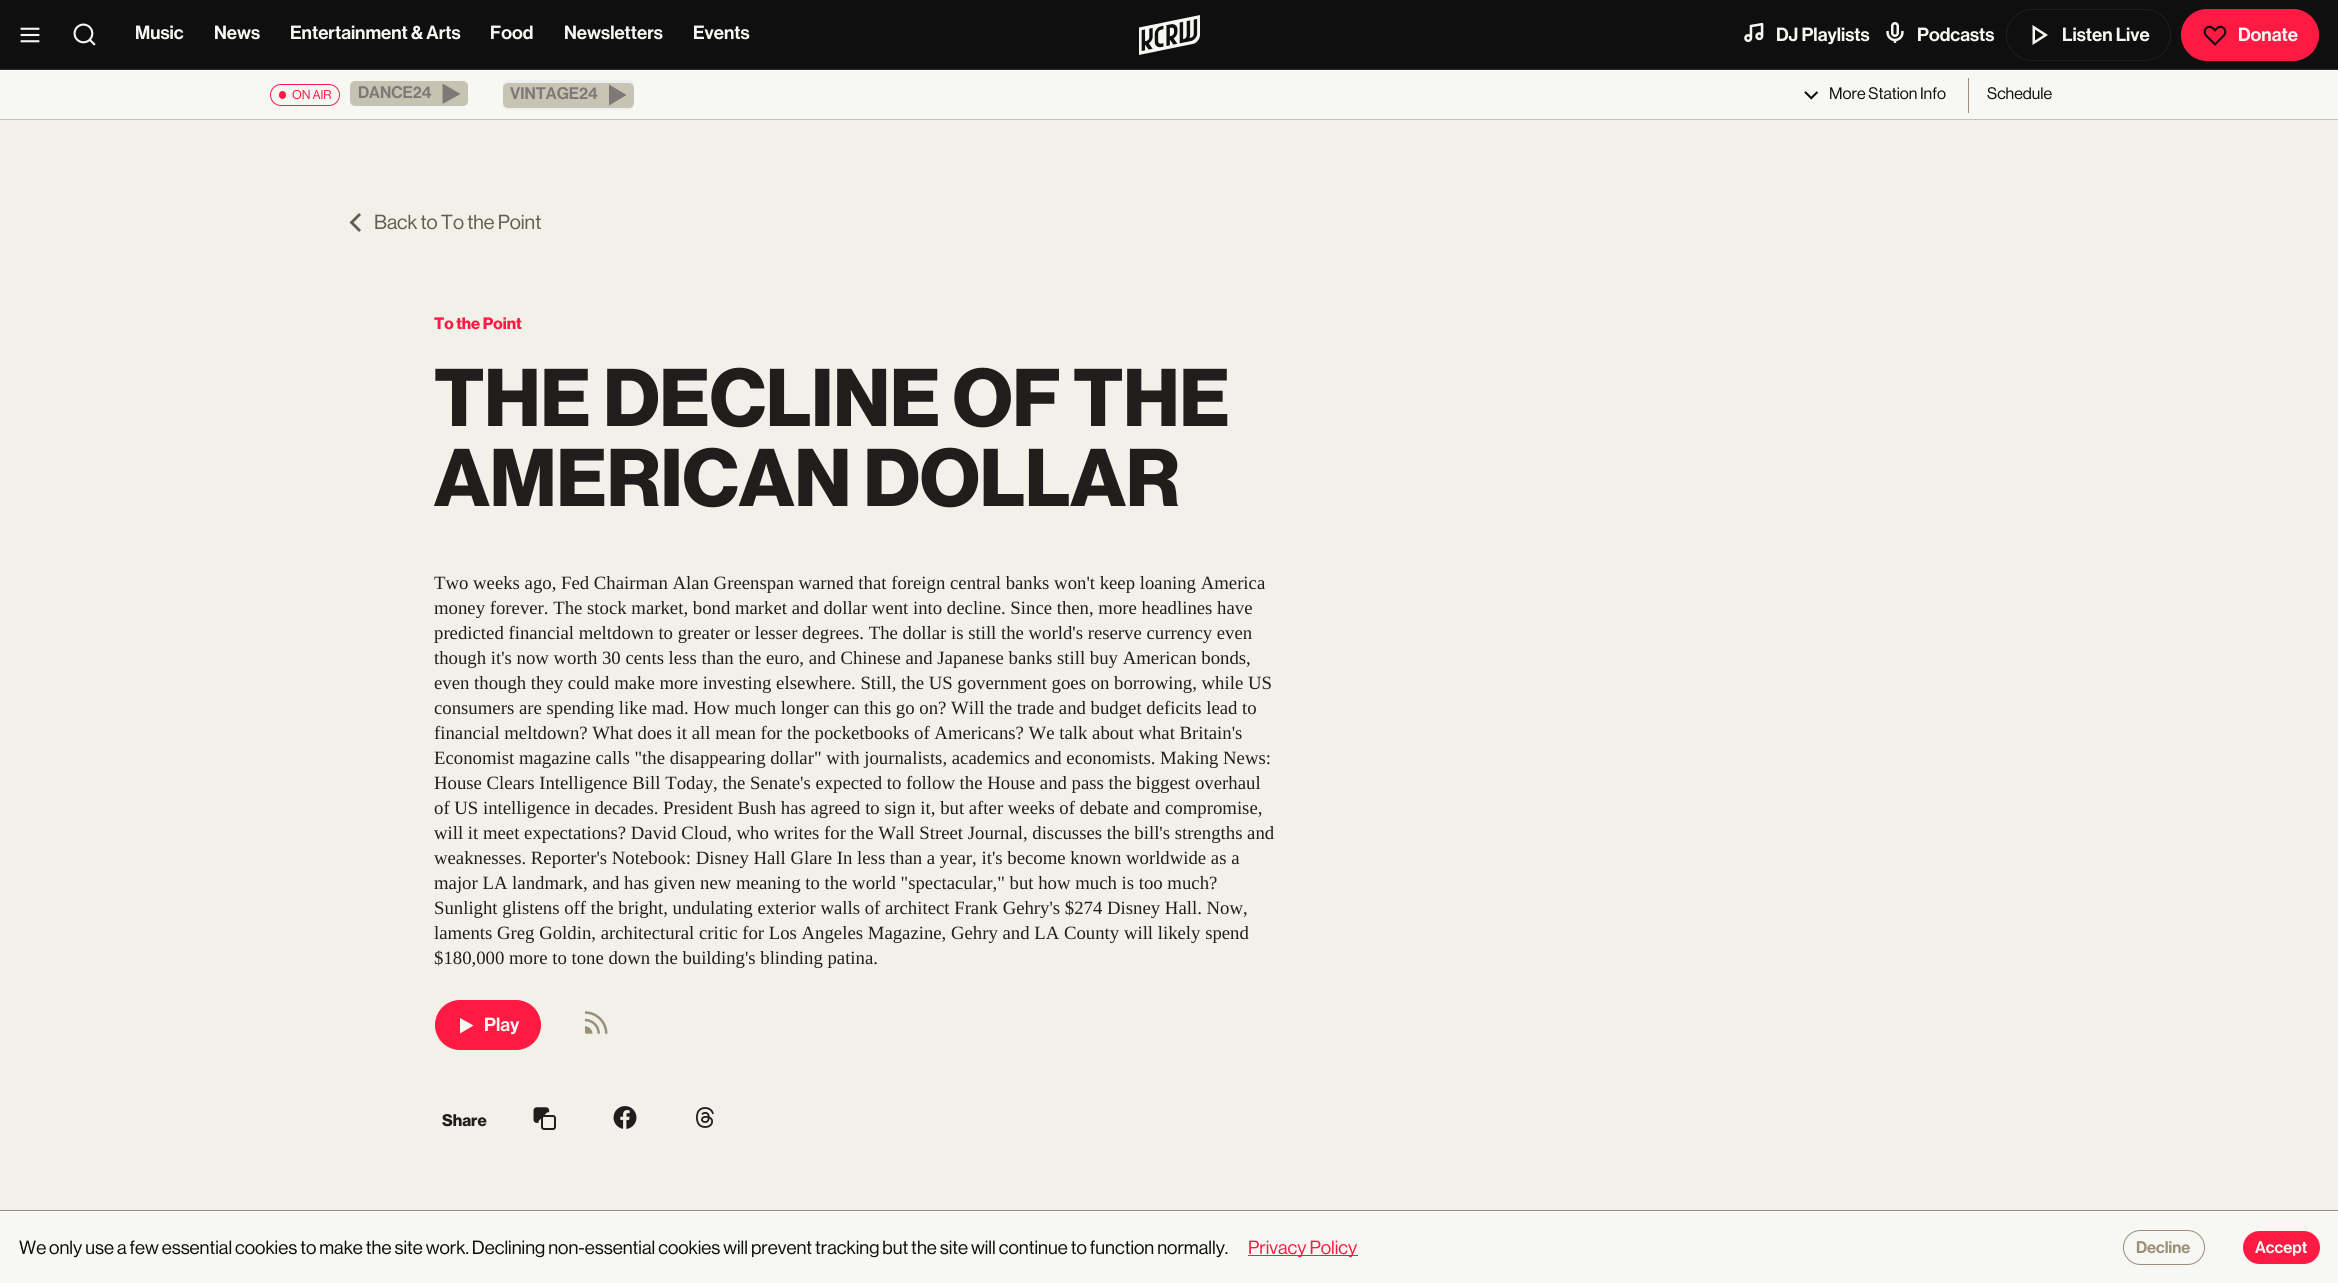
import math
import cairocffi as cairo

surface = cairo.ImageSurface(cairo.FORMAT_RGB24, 2338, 1283)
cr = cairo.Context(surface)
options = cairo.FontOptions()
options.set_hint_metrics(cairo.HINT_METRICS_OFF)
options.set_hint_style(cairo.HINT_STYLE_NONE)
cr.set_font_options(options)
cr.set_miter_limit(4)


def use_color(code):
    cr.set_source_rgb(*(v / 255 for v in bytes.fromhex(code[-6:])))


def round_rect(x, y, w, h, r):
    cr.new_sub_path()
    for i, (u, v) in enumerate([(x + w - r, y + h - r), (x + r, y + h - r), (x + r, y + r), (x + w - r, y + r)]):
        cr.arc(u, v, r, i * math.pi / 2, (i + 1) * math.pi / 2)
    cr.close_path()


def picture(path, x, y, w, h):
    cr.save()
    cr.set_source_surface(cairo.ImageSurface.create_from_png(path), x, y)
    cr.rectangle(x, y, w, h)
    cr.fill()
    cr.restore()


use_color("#f1f1ea")
cr.paint()
use_color("#0f0f0f")
cr.rectangle(0, 0, 2338, 69)
cr.fill()
use_color("#2b2b2a")
cr.rectangle(0, 69, 2338, 1)
cr.fill()
picture("img1.png", 20, 27, 20, 16)
picture("img2.png", 73, 23, 23, 23)
cr.select_font_face("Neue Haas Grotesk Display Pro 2 Medium")
cr.set_font_size(18.75)
use_color("#f7f7f3")
cr.move_to(135, 39)
cr.show_text("Music")
cr.move_to(214, 39)
cr.show_text("News")
cr.move_to(290, 39)
cr.show_text("Entertainment & Arts")
cr.move_to(490, 39)
cr.show_text("Food")
cr.move_to(564, 39)
cr.show_text("Newsletters")
cr.move_to(693, 39)
cr.show_text("Events")
picture("img3.png", 1139, 15, 61, 40)
picture("img4.png", 1744, 22, 20, 21)
cr.move_to(1776, 41)
cr.show_text("DJ Playlists")
picture("img5.png", 1886, 22, 18, 21)
cr.move_to(1917, 41)
cr.show_text("Podcasts")
round_rect(2006.5, 9.5, 164, 51, 25.5)
use_color("#201e1d")
cr.set_line_width(1)
cr.stroke()
use_color("#f7f7f3")
cr.set_fill_rule(cairo.FILL_RULE_EVEN_ODD)
cr.new_path()
cr.move_to(2032.5, 25)
cr.line_to(2048, 35)
cr.line_to(2032.5, 45)
cr.close_path()
cr.move_to(2035, 29.5)
cr.line_to(2035, 40.5)
cr.line_to(2043.5, 35)
cr.close_path()
cr.fill()
cr.move_to(2062, 41)
cr.show_text("Listen Live")
use_color("#ff1a44")
round_rect(2181.5, 9.5, 137, 51, 25.5)
cr.fill_preserve()
cr.stroke()
picture("img6.png", 2203, 25, 24, 21)
use_color("#f7f7f3")
cr.move_to(2238, 41)
cr.show_text("Donate")
cr.rectangle(0, 70, 2338, 49)
cr.fill()
use_color("#c7c4ae")
cr.rectangle(0, 119, 2338, 1)
cr.fill()
round_rect(270.5, 84.5, 69, 21, 10.5)
use_color("#ff1a44")
cr.stroke()
round_rect(279, 91, 7, 8, 3.5)
cr.fill()
cr.select_font_face("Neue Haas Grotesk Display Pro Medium")
cr.set_font_size(12.5)
cr.move_to(292, 99)
cr.show_text("ON AIR")
use_color("#efefef")
round_rect(350, 81, 118, 25, 5)
cr.fill()
cr.set_source_rgba(0.714, 0.694, 0.604, 0.7)
round_rect(350, 81, 118, 25, 5)
cr.fill()
cr.select_font_face("Neue Haas Grotesk Display Pro 2 Medium")
cr.set_font_size(16.5)
use_color("#7e7976")
cr.move_to(358, 98)
cr.show_text("DANCE24")
cr.set_fill_rule(cairo.FILL_RULE_WINDING)
cr.new_path()
cr.move_to(442.5, 83.5)
cr.line_to(442.5, 104)
cr.line_to(460.5, 94)
cr.close_path()
cr.fill()
use_color("#efefef")
round_rect(503, 80, 131, 30, 5)
cr.fill()
use_color("#c7c4b4")
round_rect(503, 83, 131, 25, 5)
cr.fill()
use_color("#7e7976")
cr.move_to(510, 99)
cr.show_text("VINTAGE24")
cr.new_path()
cr.move_to(609, 84.5)
cr.line_to(609, 105.5)
cr.line_to(626.5, 95)
cr.close_path()
cr.fill()
picture("img7.png", 1804, 91, 15, 9)
cr.select_font_face("Neue Haas Grotesk Display Pro Medium")
cr.set_font_size(16.25)
use_color("#100f0f")
cr.move_to(1829, 99)
cr.show_text("More Station Info")
use_color("#9a9079")
cr.rectangle(1968, 78, 1, 35)
cr.fill()
use_color("#100f0f")
cr.move_to(1987, 99)
cr.show_text("Schedule")
use_color("#655c53")
cr.set_fill_rule(cairo.FILL_RULE_EVEN_ODD)
cr.new_path()
cr.move_to(359, 213)
cr.line_to(361, 215)
cr.line_to(353.5, 222.5)
cr.line_to(361, 230)
cr.line_to(359, 232)
cr.line_to(349.5, 222.5)
cr.close_path()
cr.fill()
cr.set_font_size(20)
cr.move_to(374, 229)
cr.show_text("Back to To the Point")
cr.select_font_face("Neue Haas Grotesk Display Pro", cairo.FONT_SLANT_NORMAL, cairo.FONT_WEIGHT_BOLD)
cr.set_font_size(16.25)
use_color("#ff1a44")
cr.move_to(434, 329)
cr.show_text("To the Point")
cr.set_font_size(80)
use_color("#201e1d")
cr.move_to(434, 426)
cr.show_text("THE DECLINE OF THE")
cr.move_to(434, 506)
cr.show_text("AMERICAN DOLLAR")
cr.select_font_face("Liberation Serif")
cr.set_font_size(18.75)
cr.move_to(434, 589)
cr.show_text("Two weeks ago, Fed Chairman Alan Greenspan warned that foreign central banks won't keep loaning America")
cr.move_to(434, 614)
cr.show_text("money forever. The stock market, bond market and dollar went into decline. Since then, more headlines have")
cr.move_to(434, 639)
cr.show_text("predicted financial meltdown to greater or lesser degrees. The dollar is still the world's reserve currency even")
cr.move_to(434, 664)
cr.show_text("though it's now worth 30 cents less than the euro, and Chinese and Japanese banks still buy American bonds,")
cr.move_to(434, 689)
cr.show_text("even though they could make more investing elsewhere. Still, the US government goes on borrowing, while US")
cr.move_to(434, 714)
cr.show_text("consumers are spending like mad. How much longer can this go on? Will the trade and budget deficits lead to")
cr.move_to(434, 739)
cr.show_text("financial meltdown? What does it all mean for the pocketbooks of Americans? We talk about what Britain's")
cr.move_to(434, 764)
cr.show_text("Economist magazine calls \"the disappearing dollar\" with journalists, academics and economists. Making News:")
cr.move_to(434, 789)
cr.show_text("House Clears Intelligence Bill Today, the Senate's expected to follow the House and pass the biggest overhaul")
cr.move_to(434, 814)
cr.show_text("of US intelligence in decades. President Bush has agreed to sign it, but after weeks of debate and compromise,")
cr.move_to(434, 839)
cr.show_text("will it meet expectations? David Cloud, who writes for the Wall Street Journal, discusses the bill's strengths and")
cr.move_to(434, 864)
cr.show_text("weaknesses. Reporter's Notebook: Disney Hall Glare In less than a year, it's become known worldwide as a")
cr.move_to(434, 889)
cr.show_text("major LA landmark, and has given new meaning to the world \"spectacular,\" but how much is too much?")
cr.move_to(434, 914)
cr.show_text("Sunlight glistens off the bright, undulating exterior walls of architect Frank Gehry's $274 Disney Hall. Now,")
cr.move_to(434, 939)
cr.show_text("laments Greg Goldin, architectural critic for Los Angeles Magazine, Gehry and LA County will likely spend")
cr.move_to(434, 964)
cr.show_text("$180,000 more to tone down the building's blinding patina.")
use_color("#ff1a44")
round_rect(435.5, 1000.5, 105, 49, 24.5)
cr.fill_preserve()
cr.stroke()
use_color("#f7f7f3")
cr.set_fill_rule(cairo.FILL_RULE_WINDING)
cr.new_path()
cr.move_to(460, 1018)
cr.line_to(460, 1033.5)
cr.line_to(473.5, 1025.5)
cr.close_path()
cr.fill()
cr.select_font_face("Neue Haas Grotesk Display Pro 2 Medium")
cr.move_to(484, 1031)
cr.show_text("Play")
picture("img8.png", 585, 1011, 23, 23)
cr.select_font_face("Neue Haas Grotesk Display Pro", cairo.FONT_SLANT_NORMAL, cairo.FONT_WEIGHT_BOLD)
cr.set_font_size(16.5)
use_color("#201e1d")
cr.move_to(442, 1126)
cr.show_text("Share")
picture("img9.png", 533, 1107, 23, 23)
picture("img10.png", 613, 1106, 24, 23)
picture("img11.png", 696, 1107, 18, 21)
use_color("#f7f7f3")
cr.rectangle(0, 1211, 2338, 72)
cr.fill()
use_color("#9a9079")
cr.rectangle(0, 1210, 2338, 1)
cr.fill()
cr.select_font_face("Neue Haas Grotesk Display Pro Medium")
cr.set_font_size(18.75)
use_color("#100f0f")
cr.move_to(19, 1254)
cr.show_text("We only use a few essential cookies to make the site work. Declining non-essential cookies will prevent tracking but the site will continue to function normally.")
use_color("#ff1a44")
cr.rectangle(1248, 1255, 110, 1)
cr.fill()
cr.move_to(1248, 1254)
cr.show_text("Privacy Policy")
round_rect(2123.5, 1230.5, 81, 34, 17)
use_color("#9a9079")
cr.stroke()
cr.select_font_face("Neue Haas Grotesk Display Pro 2 Medium")
cr.set_font_size(16.5)
cr.move_to(2136, 1253)
cr.show_text("Decline")
use_color("#ff1a44")
round_rect(2243, 1231, 77, 33, 16.5)
cr.fill()
use_color("#f7f7f3")
cr.move_to(2255, 1253)
cr.show_text("Accept")
surface.write_to_png("result.png")
